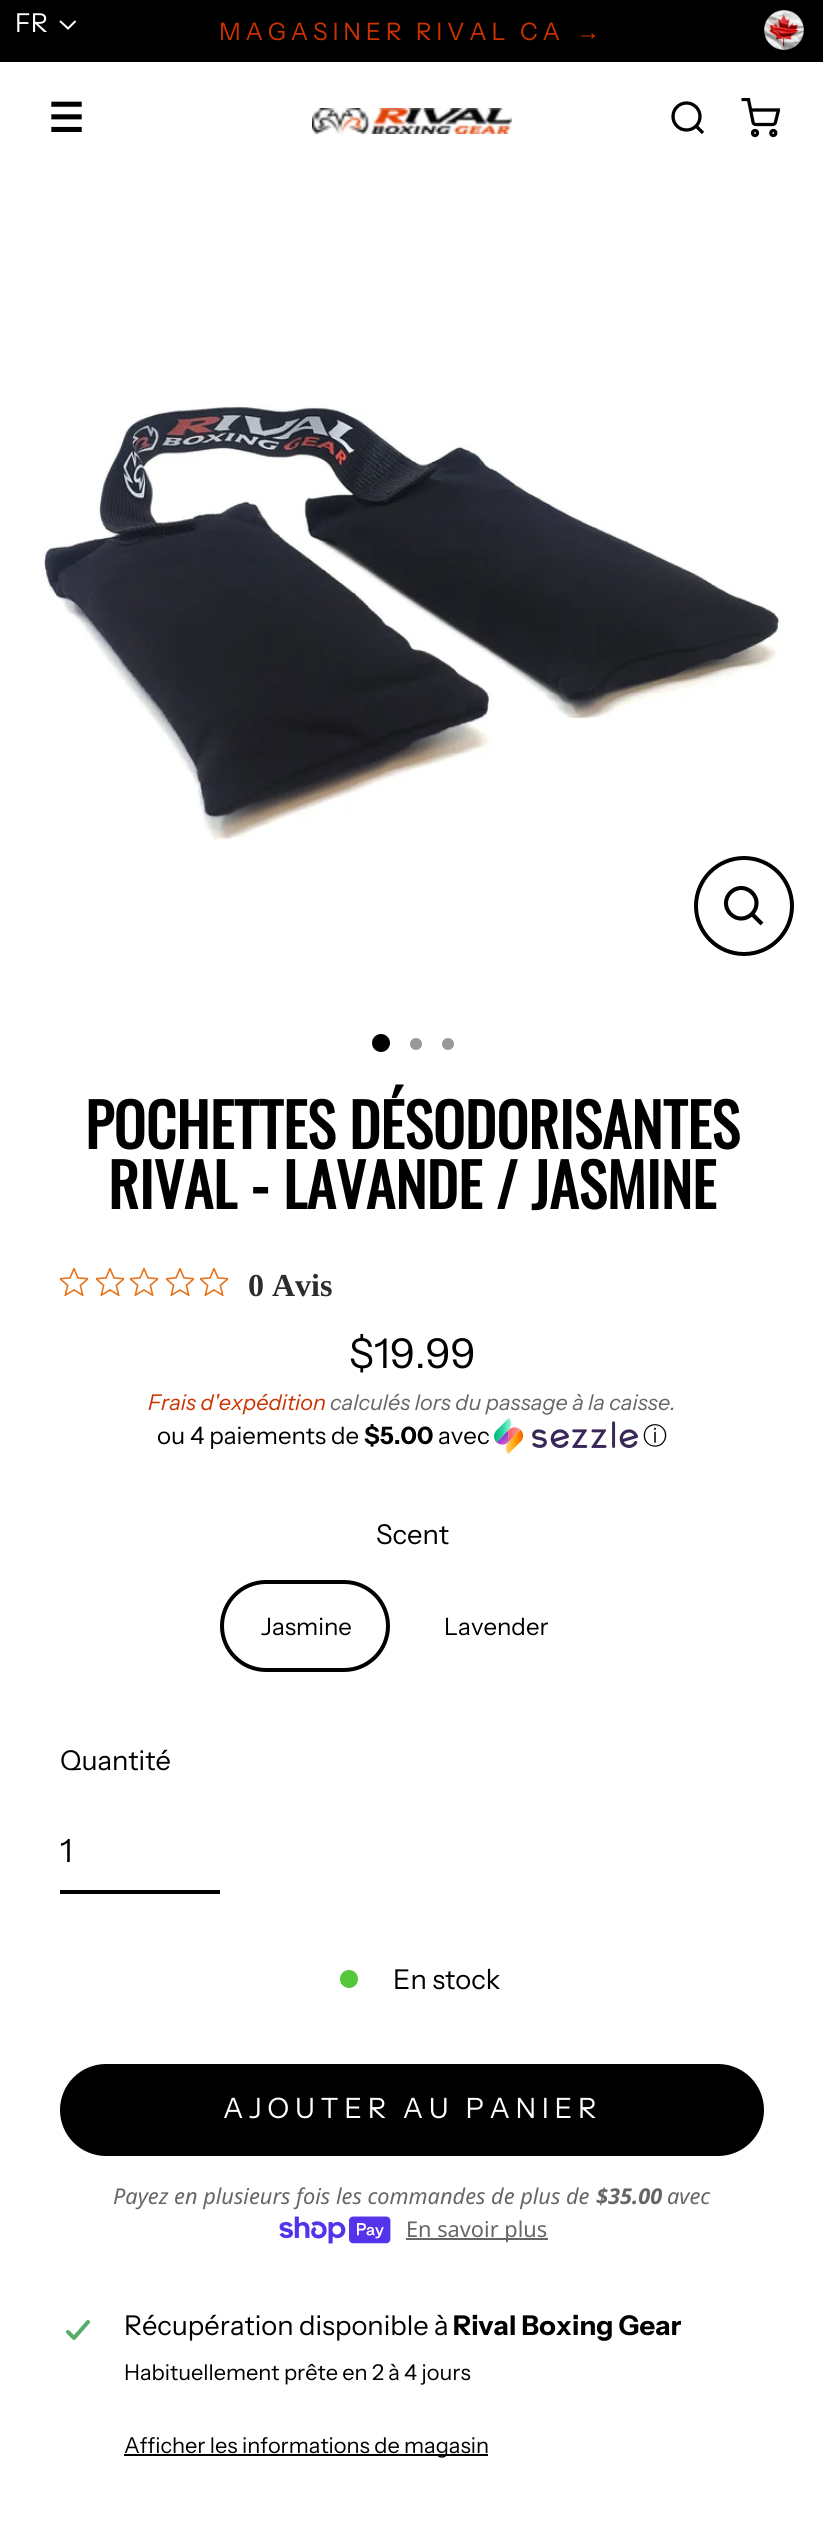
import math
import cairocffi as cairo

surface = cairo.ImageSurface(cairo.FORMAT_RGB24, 823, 2548)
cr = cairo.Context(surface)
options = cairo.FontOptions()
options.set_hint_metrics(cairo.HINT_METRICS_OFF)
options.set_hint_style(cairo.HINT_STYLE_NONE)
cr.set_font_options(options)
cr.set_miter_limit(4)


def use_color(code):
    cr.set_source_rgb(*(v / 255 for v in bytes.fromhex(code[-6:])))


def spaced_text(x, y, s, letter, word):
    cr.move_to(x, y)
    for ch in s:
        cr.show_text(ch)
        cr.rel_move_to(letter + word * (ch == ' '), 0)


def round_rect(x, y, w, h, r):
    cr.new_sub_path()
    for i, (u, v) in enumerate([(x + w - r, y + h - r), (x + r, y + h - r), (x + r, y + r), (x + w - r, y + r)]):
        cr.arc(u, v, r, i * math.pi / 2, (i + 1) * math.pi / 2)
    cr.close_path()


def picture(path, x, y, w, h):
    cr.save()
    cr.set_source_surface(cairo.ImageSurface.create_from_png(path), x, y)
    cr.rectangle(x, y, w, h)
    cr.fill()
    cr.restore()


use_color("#ffffff")
cr.paint()
use_color("#000000")
cr.rectangle(0, 0, 823, 62)
cr.fill()
cr.select_font_face("Instrument Sans")
cr.set_font_size(26)
use_color("#ffffff")
cr.move_to(15, 32)
cr.show_text("FR")
cr.new_path()
cr.move_to(60, 21)
cr.line_to(68, 28.5)
cr.line_to(75.5, 21)
cr.stroke()
cr.set_font_size(24)
use_color("#cc3300")
spaced_text(219, 40, "MAGASINER RIVAL CA", 4.75, 0)
cr.select_font_face("Liberation Sans")
spaced_text(576, 40, "→", 4.75, 0)
picture("img1.png", 764, 10, 40, 40)
cr.select_font_face("DejaVu Sans", cairo.FONT_SLANT_NORMAL, cairo.FONT_WEIGHT_BOLD)
cr.set_font_size(40)
use_color("#000000")
cr.move_to(48, 132)
cr.show_text("☰")
cr.new_path()
cr.arc(686.5, 116.5, 13.5, 0, 2 * math.pi)
cr.set_line_width(3.3)
cr.stroke()
cr.new_path()
cr.move_to(703, 133)
cr.line_to(695.5, 125.5)
cr.stroke()
cr.arc(755, 133, 2.5, 0, 2 * math.pi)
cr.stroke()
cr.arc(773.3, 133, 2.5, 0, 2 * math.pi)
cr.stroke()
cr.save()
cr.rectangle(740, 98, 40, 40)
cr.clip()
cr.new_path()
cr.move_to(741.5, 99.5)
cr.line_to(748.5, 99.5)
cr.line_to(753, 122)
cr.curve_to(753, 123.5, 754.5, 124.5, 756, 124.5)
cr.line_to(772.5, 124.5)
cr.curve_to(774, 124.5, 775.5, 123.5, 775.5, 122)
cr.line_to(778.5, 110)
cr.line_to(750, 110)
cr.stroke()
cr.restore()
picture("img2.png", 312, 108, 200, 26)
picture("img3.png", 43, 406, 737, 435)
cr.arc(744, 906, 48, 0, 2 * math.pi)
cr.set_line_width(4)
cr.stroke()
cr.new_path()
cr.move_to(756.5, 903)
cr.curve_to(756.5, 911.5, 749.5, 918.5, 741, 918.5)
cr.curve_to(733, 918.5, 726, 911.5, 726, 903)
cr.curve_to(726, 895, 733, 888, 741, 888)
cr.curve_to(749.5, 888, 756.5, 895, 756.5, 903)
cr.close_path()
cr.move_to(762, 924)
cr.line_to(752, 914)
cr.set_line_width(4.1)
cr.stroke()
cr.arc(381, 1043, 9, 0, 2 * math.pi)
cr.fill()
use_color("#999999")
cr.arc(416, 1044, 6, 0, 2 * math.pi)
cr.fill()
cr.arc(448, 1044, 6, 0, 2 * math.pi)
cr.fill()
cr.select_font_face("Oswald", cairo.FONT_SLANT_NORMAL, cairo.FONT_WEIGHT_BOLD)
cr.set_font_size(59.5)
use_color("#000000")
cr.move_to(85, 1149)
cr.show_text("POCHETTES DÉSODORISANTES")
cr.move_to(108, 1209)
cr.show_text("RIVAL - LAVANDE / JASMINE")
picture("img4.png", 60, 1268, 28, 28)
picture("img4.png", 96, 1268, 28, 28)
picture("img4.png", 130, 1268, 28, 28)
picture("img4.png", 166, 1268, 28, 28)
picture("img4.png", 200, 1268, 28, 28)
cr.select_font_face("Liberation Serif", cairo.FONT_SLANT_NORMAL, cairo.FONT_WEIGHT_BOLD)
cr.set_font_size(32)
use_color("#2c2c2c")
cr.move_to(248, 1296)
cr.show_text("0 Avis")
cr.select_font_face("Instrument Sans")
cr.set_font_size(41)
use_color("#000000")
cr.move_to(349, 1368)
cr.show_text("$19.99")
cr.select_font_face("Instrument Sans", cairo.FONT_SLANT_ITALIC)
cr.set_font_size(21.75)
use_color("#cc3300")
cr.move_to(148, 1410)
cr.show_text("Frais d'expédition")
use_color("#666666")
cr.move_to(330, 1410)
cr.show_text("calculés lors du passage à la caisse.")
cr.select_font_face("Instrument Sans")
cr.set_font_size(24)
use_color("#000000")
cr.move_to(157, 1444)
cr.show_text("ou 4 paiements de")
cr.select_font_face("Instrument Sans", cairo.FONT_SLANT_NORMAL, cairo.FONT_WEIGHT_BOLD)
cr.move_to(364, 1444)
cr.show_text("$5.00")
cr.select_font_face("Instrument Sans")
cr.move_to(438, 1444)
cr.show_text("avec")
picture("img5.png", 494, 1418, 144, 36)
cr.select_font_face("WenQuanYi Zen Hei Medium")
cr.move_to(643, 1444)
cr.show_text("ⓘ")
cr.select_font_face("Instrument Sans")
cr.set_font_size(27.25)
cr.move_to(376, 1544)
cr.show_text("Scent")
round_rect(222, 1582, 166, 88, 44)
cr.set_line_width(4)
cr.stroke()
cr.set_font_size(24)
cr.move_to(261, 1635)
cr.show_text("Jasmine")
cr.move_to(444, 1635)
cr.show_text("Lavender")
cr.set_font_size(27.25)
cr.move_to(60, 1770)
cr.show_text("Quantité")
cr.rectangle(60, 1890, 160, 4)
cr.fill()
cr.set_font_size(32)
cr.move_to(60, 1862)
cr.show_text("1")
use_color("#54c63a")
cr.new_path()
cr.arc(349, 1979, 9, 0, 2 * math.pi)
cr.fill()
cr.set_font_size(27.25)
use_color("#000000")
cr.move_to(393, 1989)
cr.show_text("En stock")
round_rect(60, 2064, 704, 92, 46)
cr.fill()
cr.set_font_size(28)
use_color("#ffffff")
spaced_text(223, 2118, "AJOUTER AU PANIER", 5.6, 0)
cr.select_font_face("Noto Sans", cairo.FONT_SLANT_ITALIC)
cr.set_font_size(21.75)
use_color("#666666")
cr.move_to(113, 2204)
cr.show_text("Payez en plusieurs fois les commandes de plus de")
cr.select_font_face("Noto Sans", cairo.FONT_SLANT_ITALIC, cairo.FONT_WEIGHT_BOLD)
cr.move_to(596, 2204)
cr.show_text("$35.00")
cr.select_font_face("Noto Sans", cairo.FONT_SLANT_ITALIC)
cr.move_to(667, 2204)
cr.show_text("avec")
picture("img6.png", 279, 2216, 112, 28)
cr.rectangle(406, 2238, 142, 2)
cr.fill()
cr.select_font_face("Noto Sans")
cr.move_to(406, 2237)
cr.show_text("En savoir plus")
picture("img7.png", 66, 2320, 24, 20)
cr.select_font_face("Instrument Sans")
cr.set_font_size(27.25)
use_color("#000000")
cr.move_to(124, 2335)
cr.show_text("Récupération disponible à")
cr.select_font_face("Instrument Sans", cairo.FONT_SLANT_NORMAL, cairo.FONT_WEIGHT_BOLD)
cr.move_to(453, 2335)
cr.show_text("Rival Boxing Gear")
cr.select_font_face("Instrument Sans")
cr.set_font_size(21.75)
cr.move_to(124, 2380)
cr.show_text("Habituellement prête en 2 à 4 jours")
cr.rectangle(124, 2454, 364, 2)
cr.fill()
cr.move_to(124, 2453)
cr.show_text("Afficher les informations de magasin")
surface.write_to_png("result.png")
